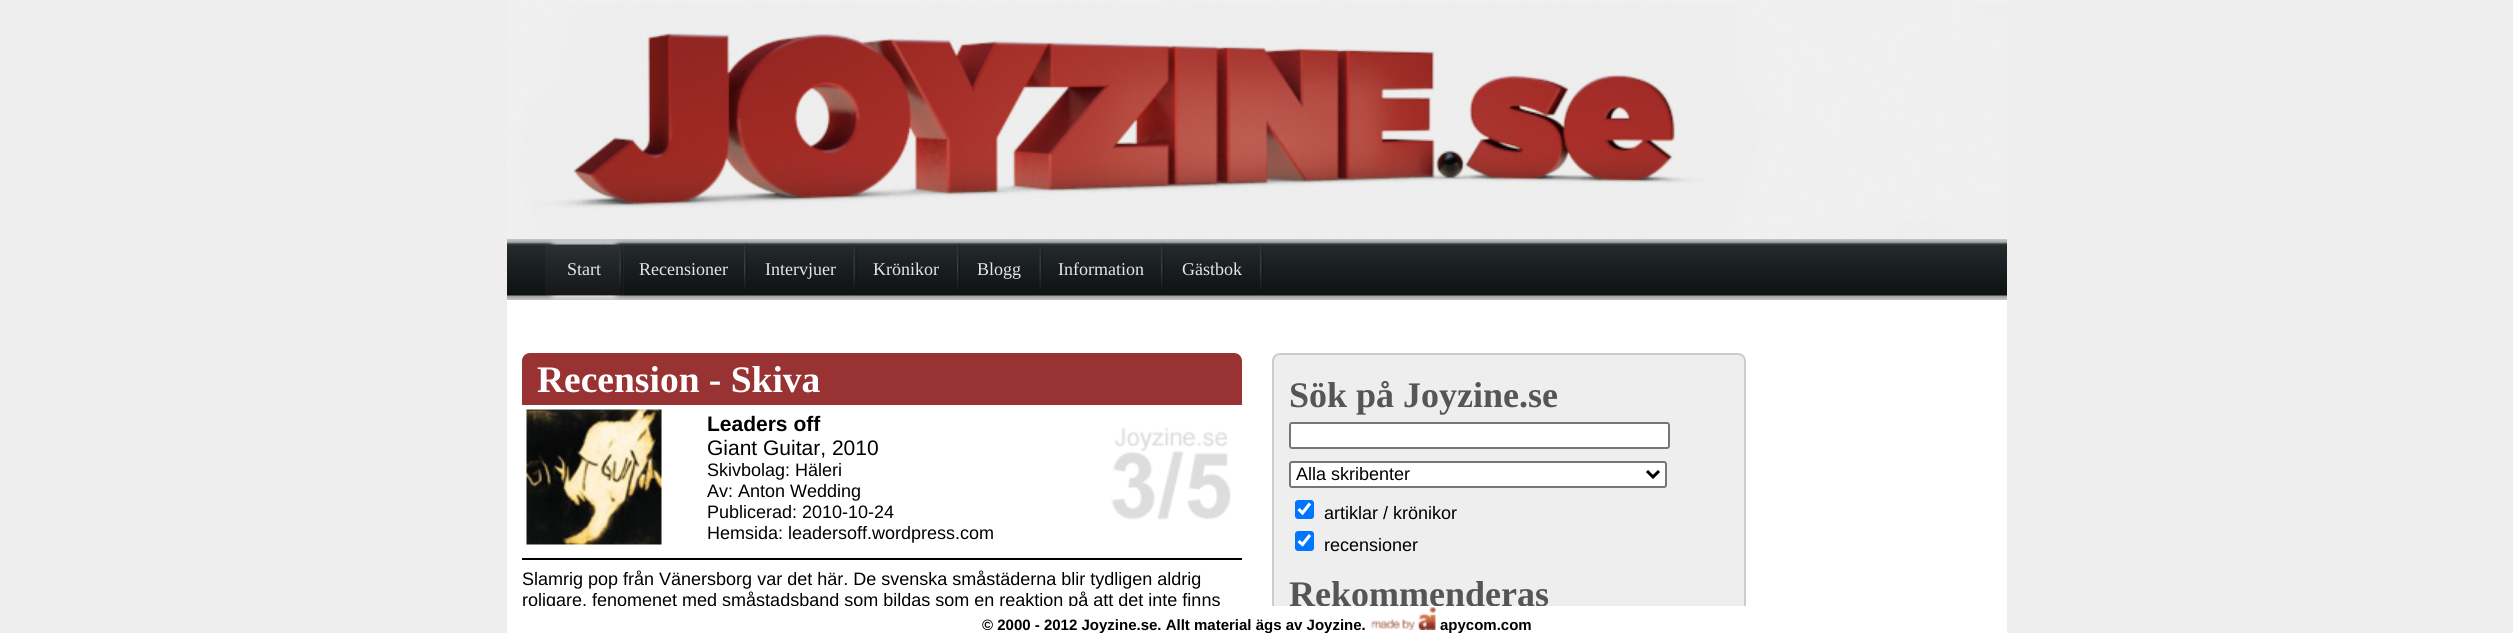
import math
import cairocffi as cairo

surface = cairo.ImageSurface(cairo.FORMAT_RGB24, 2513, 633)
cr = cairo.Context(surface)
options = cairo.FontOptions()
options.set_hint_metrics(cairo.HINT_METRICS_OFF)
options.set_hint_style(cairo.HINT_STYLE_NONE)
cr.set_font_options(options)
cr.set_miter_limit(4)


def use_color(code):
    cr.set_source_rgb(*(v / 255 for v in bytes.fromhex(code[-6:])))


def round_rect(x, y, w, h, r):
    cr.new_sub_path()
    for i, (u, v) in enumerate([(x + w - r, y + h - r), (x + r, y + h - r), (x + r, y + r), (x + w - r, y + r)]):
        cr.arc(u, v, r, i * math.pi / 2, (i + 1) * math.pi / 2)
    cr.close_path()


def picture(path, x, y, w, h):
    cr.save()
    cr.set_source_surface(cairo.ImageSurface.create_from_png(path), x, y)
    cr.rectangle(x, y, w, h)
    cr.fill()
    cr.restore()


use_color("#eeeeee")
cr.paint()
use_color("#ffffff")
cr.rectangle(507, 238, 1500, 368)
cr.fill()
picture("img1.png", 507, 0, 1500, 238)
use_color("#dfdfdf")
cr.rectangle(507, 239, 1500, 61)
cr.fill()
picture("img2.png", 507, 238, 1500, 62)
picture("img3.png", 604, 239, 20, 61)
picture("img4.png", 545, 239, 60, 61)
picture("img5.png", 957, 244, 3, 47)
cr.select_font_face("Liberation Serif")
cr.set_font_size(18)
use_color("#e5e5e5")
cr.move_to(873, 275)
cr.show_text("Krönikor")
picture("img6.png", 1039, 244, 4, 46)
cr.move_to(977, 275)
cr.show_text("Blogg")
picture("img7.png", 1161, 244, 3, 47)
cr.move_to(1058, 275)
cr.show_text("Information")
picture("img7.png", 1260, 244, 3, 47)
cr.move_to(1182, 275)
cr.show_text("Gästbok")
picture("img8.png", 619, 244, 4, 49)
cr.move_to(567, 275)
cr.show_text("Start")
picture("img7.png", 744, 244, 3, 47)
cr.move_to(639, 275)
cr.show_text("Recensioner")
picture("img6.png", 853, 244, 4, 46)
cr.move_to(765, 275)
cr.show_text("Intervjuer")
use_color("#993333")
cr.new_path()
cr.move_to(530, 353)
cr.line_to(1234, 353)
cr.curve_to(1238.5, 353, 1242, 356.5, 1242, 361)
cr.line_to(1242, 405)
cr.line_to(522, 405)
cr.line_to(522, 361)
cr.curve_to(522, 356.5, 525.5, 353, 530, 353)
cr.close_path()
cr.fill()
cr.select_font_face("Liberation Serif", cairo.FONT_SLANT_NORMAL, cairo.FONT_WEIGHT_BOLD)
cr.set_font_size(37.5)
use_color("#ffffff")
cr.move_to(537, 392)
cr.show_text("Recension - Skiva")
picture("img9.png", 526, 409, 136, 136)
cr.select_font_face("Liberation Sans", cairo.FONT_SLANT_NORMAL, cairo.FONT_WEIGHT_BOLD)
cr.set_font_size(21)
use_color("#000000")
cr.move_to(707, 431)
cr.show_text("Leaders off")
cr.select_font_face("Liberation Sans")
cr.move_to(707, 455)
cr.show_text("Giant Guitar, 2010")
cr.set_font_size(18)
cr.move_to(707, 476)
cr.show_text("Skivbolag: Häleri")
cr.move_to(707, 497)
cr.show_text("Av: Anton Wedding")
cr.move_to(707, 518)
cr.show_text("Publicerad: 2010-10-24")
cr.move_to(707, 539)
cr.show_text("Hemsida: leadersoff.wordpress.com")
picture("img10.png", 1111, 427, 120, 93)
cr.rectangle(522, 558, 720, 2)
cr.fill()
cr.move_to(522, 585)
cr.show_text("Slamrig pop från Vänersborg var det här. De svenska småstäderna blir tydligen aldrig")
cr.move_to(522, 606)
cr.show_text("roligare, fenomenet med småstadsband som bildas som en reaktion på att det inte finns")
use_color("#eeeeee")
round_rect(1273, 354, 472, 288, 7)
cr.fill_preserve()
use_color("#cccccc")
cr.stroke()
cr.select_font_face("Liberation Serif", cairo.FONT_SLANT_NORMAL, cairo.FONT_WEIGHT_BOLD)
cr.set_font_size(36)
use_color("#555555")
cr.move_to(1289, 407)
cr.show_text("Sök på Joyzine.se")
use_color("#ffffff")
round_rect(1290, 423, 379, 25, 2)
cr.fill_preserve()
use_color("#767676")
cr.stroke()
use_color("#ffffff")
round_rect(1290, 462, 376, 25, 2)
cr.fill_preserve()
use_color("#767676")
cr.stroke()
cr.new_path()
cr.move_to(1647, 471)
cr.line_to(1653, 477)
cr.line_to(1659, 471)
use_color("#000000")
cr.set_line_width(3)
cr.stroke()
cr.select_font_face("Liberation Sans")
cr.set_font_size(18)
cr.move_to(1296, 480)
cr.show_text("Alla skribenter")
use_color("#0075ff")
round_rect(1295, 500, 19, 19, 3)
cr.fill()
cr.new_path()
cr.move_to(1298.5, 509)
cr.line_to(1302.5, 513)
cr.line_to(1310, 503.5)
use_color("#ffffff")
cr.set_line_width(3.1)
cr.stroke()
use_color("#000000")
cr.move_to(1324, 519)
cr.show_text("artiklar / krönikor")
use_color("#0075ff")
round_rect(1295, 531, 19, 20, 3)
cr.fill()
cr.new_path()
cr.move_to(1298.5, 541)
cr.line_to(1302.5, 544.5)
cr.line_to(1310, 535)
use_color("#ffffff")
cr.stroke()
use_color("#000000")
cr.move_to(1324, 551)
cr.show_text("recensioner")
cr.select_font_face("Liberation Serif", cairo.FONT_SLANT_NORMAL, cairo.FONT_WEIGHT_BOLD)
cr.set_font_size(36)
use_color("#555555")
cr.move_to(1289, 606)
cr.show_text("Rekommenderas")
use_color("#ffffff")
cr.rectangle(507, 606, 1500, 27)
cr.fill()
cr.select_font_face("Liberation Sans", cairo.FONT_SLANT_NORMAL, cairo.FONT_WEIGHT_BOLD)
cr.set_font_size(15)
use_color("#000000")
cr.move_to(982, 630)
cr.show_text("© 2000 - 2012 Joyzine.se. Allt material ägs av Joyzine.")
picture("img11.png", 1370, 607, 66, 23)
cr.move_to(1440, 630)
cr.show_text("apycom.com")
surface.write_to_png("result.png")
